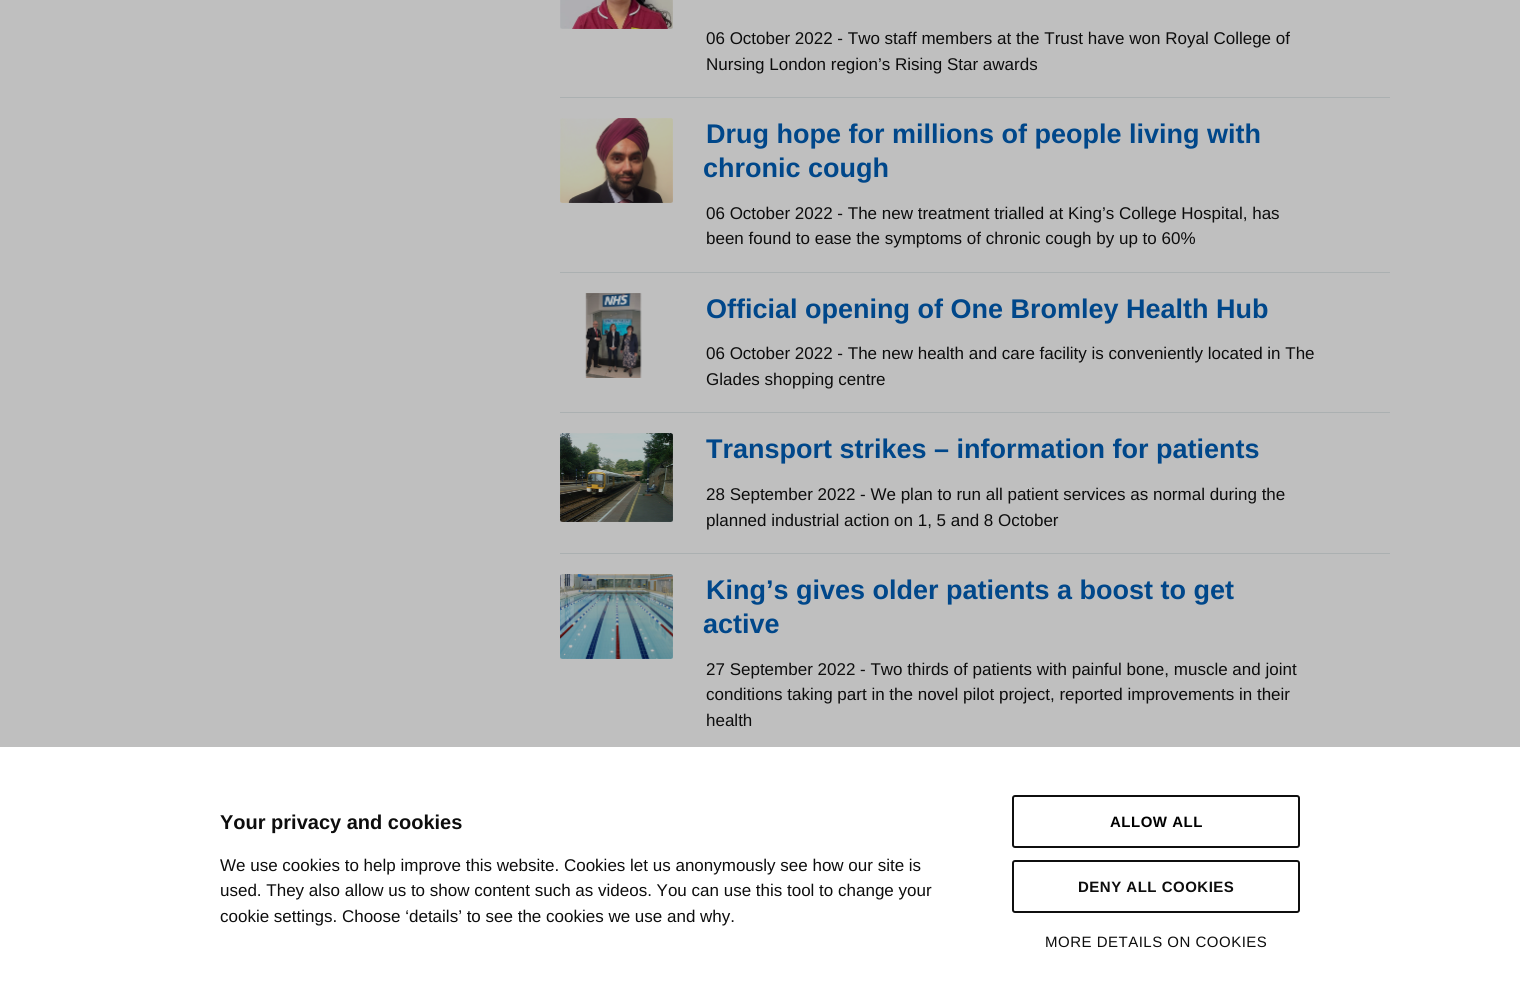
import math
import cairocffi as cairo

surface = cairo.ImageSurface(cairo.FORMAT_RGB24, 1520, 1006)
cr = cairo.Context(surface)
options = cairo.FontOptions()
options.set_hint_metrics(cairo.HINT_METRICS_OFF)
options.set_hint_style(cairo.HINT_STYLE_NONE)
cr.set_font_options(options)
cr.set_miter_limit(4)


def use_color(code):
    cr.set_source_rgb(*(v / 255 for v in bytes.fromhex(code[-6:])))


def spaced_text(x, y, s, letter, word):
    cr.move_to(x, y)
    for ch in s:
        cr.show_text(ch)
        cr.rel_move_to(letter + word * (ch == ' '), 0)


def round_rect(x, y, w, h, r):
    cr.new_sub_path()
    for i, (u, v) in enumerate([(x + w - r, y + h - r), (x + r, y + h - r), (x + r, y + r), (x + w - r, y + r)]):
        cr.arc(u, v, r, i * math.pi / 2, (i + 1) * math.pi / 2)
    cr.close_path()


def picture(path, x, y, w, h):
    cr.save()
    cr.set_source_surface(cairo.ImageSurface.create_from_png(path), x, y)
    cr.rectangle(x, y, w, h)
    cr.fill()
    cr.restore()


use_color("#bfbfbf")
cr.paint()
use_color("#abb0b1")
cr.rectangle(560, 97, 830, 1)
cr.fill()
picture("img1.png", 560, 0, 113, 29)
cr.select_font_face("Liberation Sans")
cr.set_font_size(17)
use_color("#0d0d0d")
cr.move_to(706, 44)
cr.show_text("06 October 2022 - Two staff members at the Trust have won Royal College of")
cr.move_to(706, 70)
cr.show_text("Nursing London region’s Rising Star awards")
use_color("#abb0b1")
cr.rectangle(560, 272, 830, 1)
cr.fill()
picture("img2.png", 560, 118, 113, 85)
cr.select_font_face("Liberation Sans", cairo.FONT_SLANT_NORMAL, cairo.FONT_WEIGHT_BOLD)
cr.set_font_size(27)
use_color("#00478a")
cr.move_to(706, 143)
cr.show_text("Drug hope for millions of people living with")
cr.move_to(703, 177)
cr.show_text("chronic cough")
cr.select_font_face("Liberation Sans")
cr.set_font_size(17)
use_color("#0d0d0d")
cr.move_to(706, 219)
cr.show_text("06 October 2022 - The new treatment trialled at King’s College Hospital, has")
cr.move_to(706, 244)
cr.show_text("been found to ease the symptoms of chronic cough by up to 60%")
use_color("#abb0b1")
cr.rectangle(560, 412, 830, 1)
cr.fill()
picture("img3.png", 585, 293, 57, 85)
cr.select_font_face("Liberation Sans", cairo.FONT_SLANT_NORMAL, cairo.FONT_WEIGHT_BOLD)
cr.set_font_size(27)
use_color("#00478a")
cr.move_to(706, 318)
cr.show_text("Official opening of One Bromley Health Hub")
cr.select_font_face("Liberation Sans")
cr.set_font_size(17)
use_color("#0d0d0d")
cr.move_to(706, 359)
cr.show_text("06 October 2022 - The new health and care facility is conveniently located in The")
cr.move_to(706, 385)
cr.show_text("Glades shopping centre")
use_color("#abb0b1")
cr.rectangle(560, 553, 830, 1)
cr.fill()
picture("img4.png", 560, 433, 113, 89)
cr.select_font_face("Liberation Sans", cairo.FONT_SLANT_NORMAL, cairo.FONT_WEIGHT_BOLD)
cr.set_font_size(27)
use_color("#00478a")
cr.move_to(706, 458)
cr.show_text("Transport strikes – information for patients")
cr.select_font_face("Liberation Sans")
cr.set_font_size(17)
use_color("#0d0d0d")
cr.move_to(706, 500)
cr.show_text("28 September 2022 - We plan to run all patient services as normal during the")
cr.move_to(706, 526)
cr.show_text("planned industrial action on 1, 5 and 8 October")
picture("img5.png", 560, 574, 113, 85)
cr.select_font_face("Liberation Sans", cairo.FONT_SLANT_NORMAL, cairo.FONT_WEIGHT_BOLD)
cr.set_font_size(27)
use_color("#00478a")
cr.move_to(706, 599)
cr.show_text("King’s gives older patients a boost to get")
cr.move_to(703, 633)
cr.show_text("active")
cr.select_font_face("Liberation Sans")
cr.set_font_size(17)
use_color("#0d0d0d")
cr.move_to(706, 675)
cr.show_text("27 September 2022 - Two thirds of patients with painful bone, muscle and joint")
cr.move_to(706, 700)
cr.show_text("conditions taking part in the novel pilot project, reported improvements in their")
cr.move_to(706, 726)
cr.show_text("health")
use_color("#ffffff")
cr.rectangle(0, 747, 1520, 259)
cr.fill()
cr.select_font_face("Liberation Sans", cairo.FONT_SLANT_NORMAL, cairo.FONT_WEIGHT_BOLD)
cr.set_font_size(20)
use_color("#0d0d0d")
cr.move_to(220, 829)
cr.show_text("Your privacy and cookies")
cr.select_font_face("Liberation Sans")
cr.set_font_size(17)
cr.move_to(220, 871)
cr.show_text("We use cookies to help improve this website. Cookies let us anonymously see how our site is")
cr.move_to(220, 896)
cr.show_text("used. They also allow us to show content such as videos. You can use this tool to change your")
cr.move_to(220, 922)
cr.show_text("cookie settings. Choose ‘details’ to see the cookies we use and why.")
round_rect(1013, 796, 286, 51, 2)
use_color("#0f0f0f")
cr.stroke()
cr.select_font_face("Liberation Sans", cairo.FONT_SLANT_NORMAL, cairo.FONT_WEIGHT_BOLD)
cr.set_font_size(15)
use_color("#000000")
spaced_text(1110, 827, "ALLOW ALL", 0.5, 0)
round_rect(1013, 861, 286, 51, 2)
use_color("#0f0f0f")
cr.stroke()
use_color("#0d0d0d")
spaced_text(1078, 892, "DENY ALL COOKIES", 0.5, 0)
cr.select_font_face("Liberation Sans")
spaced_text(1045, 947, "MORE DETAILS ON COOKIES", 0.5, 0)
surface.write_to_png("result.png")
